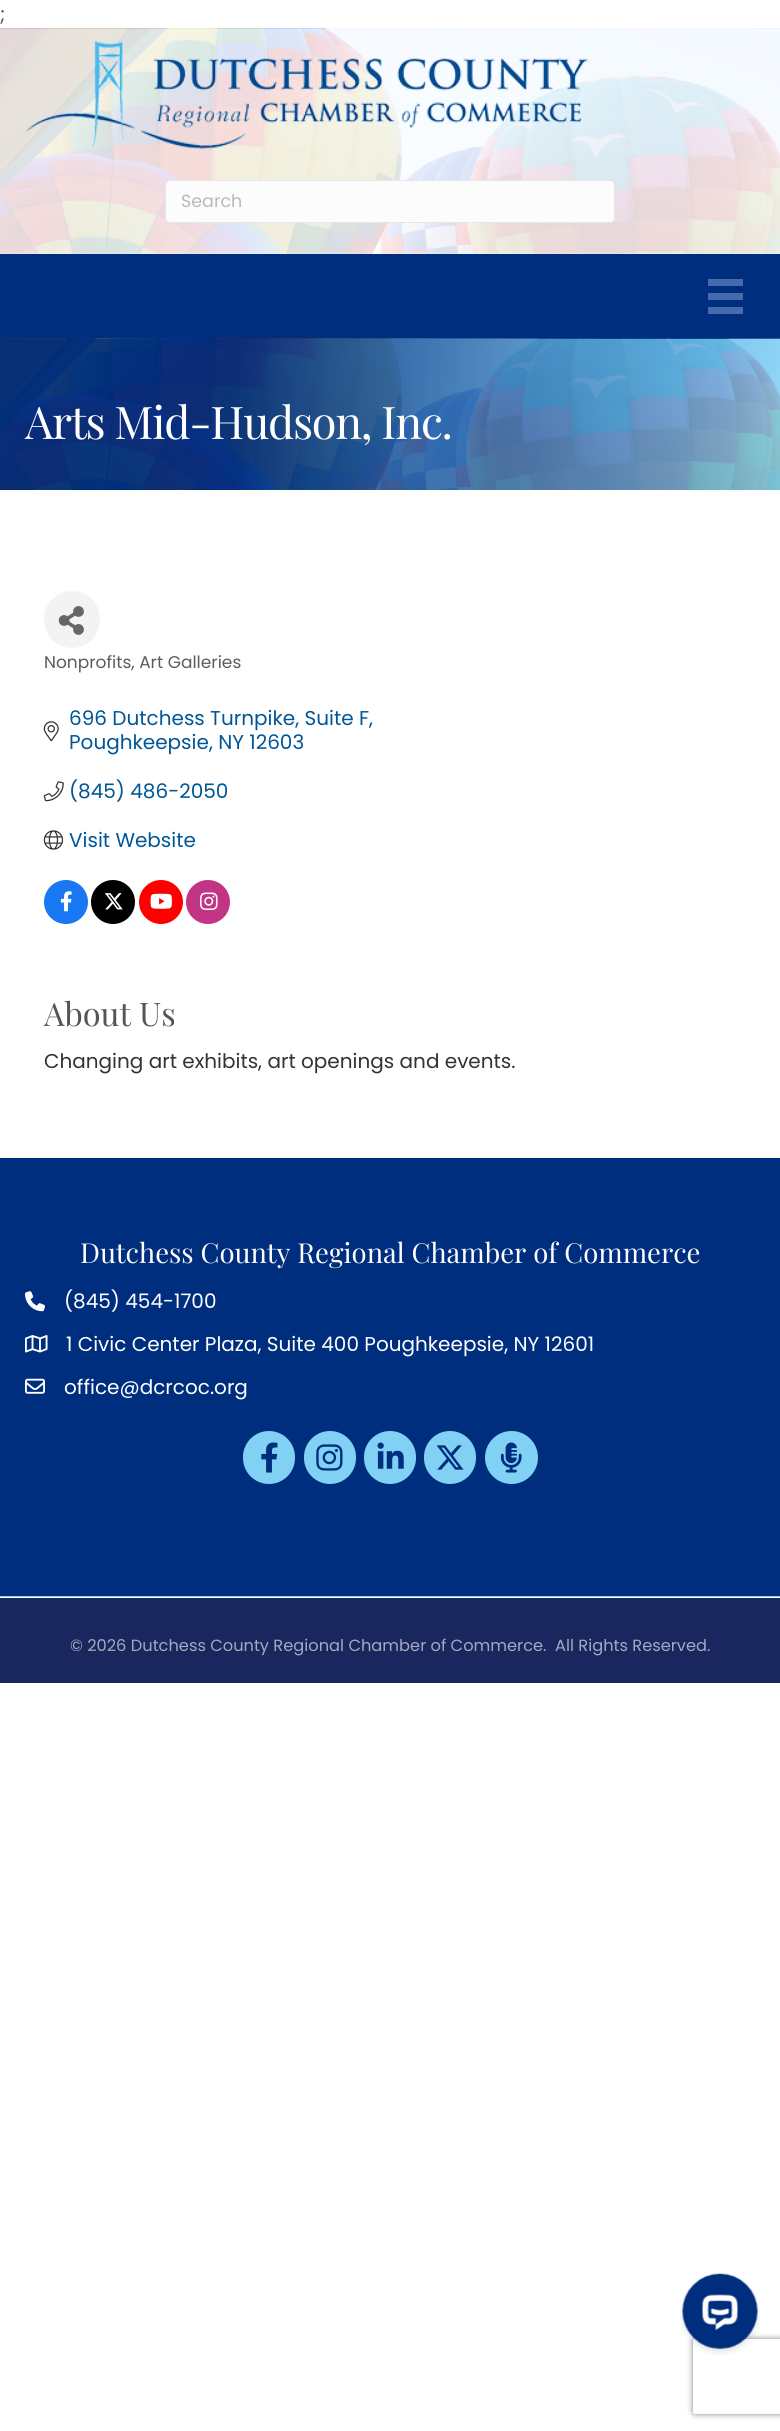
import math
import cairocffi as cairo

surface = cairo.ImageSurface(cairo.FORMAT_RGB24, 780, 2431)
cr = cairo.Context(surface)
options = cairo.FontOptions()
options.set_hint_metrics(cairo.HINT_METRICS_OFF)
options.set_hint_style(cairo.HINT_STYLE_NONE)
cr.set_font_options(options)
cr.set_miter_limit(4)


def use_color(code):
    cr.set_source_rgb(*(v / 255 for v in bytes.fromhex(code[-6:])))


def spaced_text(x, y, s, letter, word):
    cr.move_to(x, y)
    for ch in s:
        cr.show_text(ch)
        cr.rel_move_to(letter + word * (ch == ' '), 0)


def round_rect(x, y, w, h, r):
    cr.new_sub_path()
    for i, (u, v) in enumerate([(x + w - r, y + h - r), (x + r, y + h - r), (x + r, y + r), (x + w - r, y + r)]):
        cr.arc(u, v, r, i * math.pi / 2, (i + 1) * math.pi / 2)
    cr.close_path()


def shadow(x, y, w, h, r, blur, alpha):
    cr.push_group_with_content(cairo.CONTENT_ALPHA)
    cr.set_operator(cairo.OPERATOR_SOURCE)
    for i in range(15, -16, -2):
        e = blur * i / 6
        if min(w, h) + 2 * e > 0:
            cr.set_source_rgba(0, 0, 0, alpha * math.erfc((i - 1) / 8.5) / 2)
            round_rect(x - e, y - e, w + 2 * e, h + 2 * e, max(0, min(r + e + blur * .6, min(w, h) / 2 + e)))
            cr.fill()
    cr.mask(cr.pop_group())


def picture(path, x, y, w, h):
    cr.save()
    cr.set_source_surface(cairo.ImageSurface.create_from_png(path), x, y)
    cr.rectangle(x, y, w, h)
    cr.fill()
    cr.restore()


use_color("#ffffff")
cr.paint()
cr.select_font_face("Poppins")
cr.set_font_size(20)
use_color("#555555")
cr.move_to(0, 21)
cr.show_text(";")
picture("img1.png", 0, 28, 780, 226)
picture("img2.png", 25, 41, 563, 108)
use_color("#fcfcfc")
round_rect(165.5, 180.5, 449, 42, 4.5)
cr.fill_preserve()
use_color("#e6e6e6")
cr.set_line_width(1)
cr.stroke()
cr.set_font_size(17.5)
use_color("#b9b9b9")
cr.move_to(181, 207)
cr.show_text("Search")
use_color("#002e7e")
cr.rectangle(0, 254, 780, 85)
cr.fill()
use_color("#466bac")
cr.rectangle(708, 279, 35, 7)
cr.fill()
cr.rectangle(708, 293, 35, 7)
cr.fill()
cr.rectangle(708, 307, 35, 7)
cr.fill()
picture("img3.png", 0, 338, 780, 152)
cr.select_font_face("Playfair Display")
cr.set_font_size(45)
use_color("#ffffff")
spaced_text(25, 439, "Arts Mid-Hudson, Inc.", -1.25, 0)
use_color("#f3f3f3")
round_rect(44, 591, 56, 57, 28)
cr.fill()
picture("img4.png", 58, 606, 26, 29)
cr.select_font_face("Poppins")
cr.set_font_size(17)
use_color("#5c5c5c")
cr.move_to(44, 668)
cr.show_text("Nonprofits, Art Galleries")
picture("img5.png", 43, 721, 16, 21)
cr.set_font_size(20)
use_color("#005696")
cr.move_to(69, 725)
cr.show_text("696 Dutchess Turnpike, Suite F,")
cr.move_to(69, 749)
cr.show_text("Poughkeepsie, NY 12603")
picture("img6.png", 43, 781, 21, 21)
cr.move_to(69, 798)
cr.show_text("(845) 486-2050")
picture("img7.png", 43, 830, 21, 20)
cr.move_to(69, 847)
cr.show_text("Visit Website")
use_color("#1877f2")
cr.new_path()
cr.arc(66, 902, 22, 0, 2 * math.pi)
cr.fill()
picture("img8.png", 60, 891, 12, 21)
use_color("#000000")
cr.arc(113, 902, 22, 0, 2 * math.pi)
cr.fill()
picture("img9.png", 104, 893, 19, 17)
use_color("#ff0000")
cr.arc(161, 902, 22, 0, 2 * math.pi)
cr.fill()
picture("img10.png", 150, 893, 22, 16)
use_color("#c13584")
cr.arc(208, 902, 22, 0, 2 * math.pi)
cr.fill()
picture("img11.png", 200, 892, 18, 18)
cr.select_font_face("Playfair Display")
cr.set_font_size(32.5)
use_color("#555555")
cr.move_to(44, 1026)
cr.show_text("About Us")
cr.select_font_face("Poppins")
cr.set_font_size(20)
use_color("#333333")
cr.move_to(44, 1068)
cr.show_text("Changing art exhibits, art openings and events.")
use_color("#002e7e")
cr.rectangle(0, 1158, 780, 438)
cr.fill()
cr.select_font_face("Playfair Display")
cr.set_font_size(27.5)
use_color("#ffffff")
cr.move_to(80, 1263)
cr.show_text("Dutchess County Regional Chamber of Commerce")
picture("img12.png", 25, 1291, 20, 21)
cr.select_font_face("Poppins")
cr.set_font_size(20)
cr.move_to(64, 1308)
cr.show_text("(845) 454-1700")
picture("img13.png", 25, 1335, 23, 18)
cr.move_to(66, 1351)
cr.show_text("1 Civic Center Plaza, Suite 400 Poughkeepsie, NY 12601")
picture("img14.png", 25, 1378, 20, 16)
cr.move_to(64, 1394)
cr.show_text("office@dcrcoc.org")
use_color("#81d1f5")
round_rect(243, 1431, 52, 53, 26)
cr.fill()
picture("img15.png", 261, 1442, 17, 31)
round_rect(304, 1431, 52, 53, 26)
cr.fill()
picture("img16.png", 316, 1444, 27, 27)
round_rect(364, 1431, 52, 53, 26)
cr.fill()
picture("img17.png", 377, 1442, 27, 27)
round_rect(424, 1431, 52, 53, 26)
cr.fill()
picture("img18.png", 436, 1445, 28, 25)
cr.arc(511.5, 1457.5, 26.5, 0, 2 * math.pi)
cr.fill()
picture("img19.png", 500, 1442, 22, 31)
use_color("#19275e")
cr.rectangle(0, 1598, 780, 85)
cr.fill()
use_color("#81d1f5")
cr.rectangle(0, 1596, 780, 1)
cr.fill()
cr.set_font_size(16.25)
use_color("#a3a9bf")
cr.move_to(70, 1651)
cr.show_text("© 2026 Dutchess County Regional Chamber of Commerce.")
cr.move_to(555, 1651)
cr.show_text("All Rights Reserved.")
cr.save()
cr.set_fill_rule(cairo.FILL_RULE_EVEN_ODD)
cr.new_path()
cr.move_to(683, 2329)
cr.line_to(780, 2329)
cr.line_to(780, 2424)
cr.line_to(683, 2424)
cr.close_path()
cr.move_to(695.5, 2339)
cr.line_to(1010.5, 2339)
cr.curve_to(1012, 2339, 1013, 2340, 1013, 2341.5)
cr.line_to(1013, 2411.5)
cr.curve_to(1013, 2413, 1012, 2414, 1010.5, 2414)
cr.line_to(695.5, 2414)
cr.curve_to(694, 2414, 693, 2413, 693, 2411.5)
cr.line_to(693, 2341.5)
cr.curve_to(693, 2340, 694, 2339, 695.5, 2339)
cr.close_path()
cr.clip()
use_color("#808080")
shadow(693, 2339, 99, 75, 2.5, 3, 1)
cr.restore()
picture("img20.png", 680, 2273, 80, 82)
surface.write_to_png("result.png")
